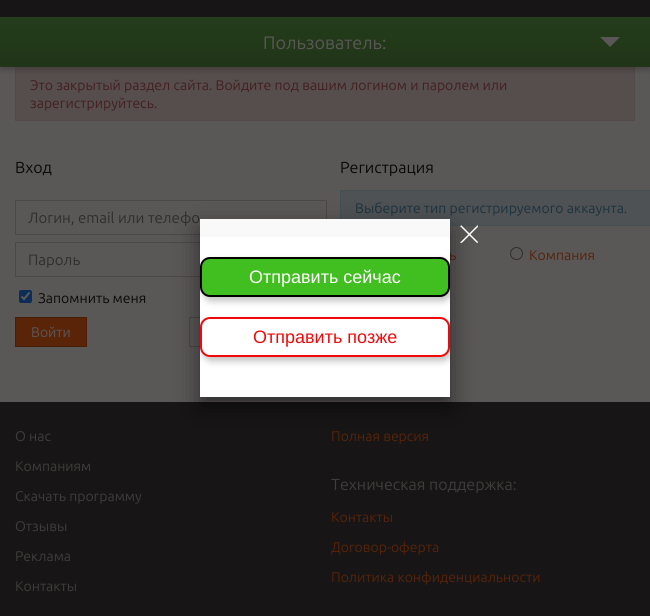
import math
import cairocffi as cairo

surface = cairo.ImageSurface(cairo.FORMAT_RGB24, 650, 616)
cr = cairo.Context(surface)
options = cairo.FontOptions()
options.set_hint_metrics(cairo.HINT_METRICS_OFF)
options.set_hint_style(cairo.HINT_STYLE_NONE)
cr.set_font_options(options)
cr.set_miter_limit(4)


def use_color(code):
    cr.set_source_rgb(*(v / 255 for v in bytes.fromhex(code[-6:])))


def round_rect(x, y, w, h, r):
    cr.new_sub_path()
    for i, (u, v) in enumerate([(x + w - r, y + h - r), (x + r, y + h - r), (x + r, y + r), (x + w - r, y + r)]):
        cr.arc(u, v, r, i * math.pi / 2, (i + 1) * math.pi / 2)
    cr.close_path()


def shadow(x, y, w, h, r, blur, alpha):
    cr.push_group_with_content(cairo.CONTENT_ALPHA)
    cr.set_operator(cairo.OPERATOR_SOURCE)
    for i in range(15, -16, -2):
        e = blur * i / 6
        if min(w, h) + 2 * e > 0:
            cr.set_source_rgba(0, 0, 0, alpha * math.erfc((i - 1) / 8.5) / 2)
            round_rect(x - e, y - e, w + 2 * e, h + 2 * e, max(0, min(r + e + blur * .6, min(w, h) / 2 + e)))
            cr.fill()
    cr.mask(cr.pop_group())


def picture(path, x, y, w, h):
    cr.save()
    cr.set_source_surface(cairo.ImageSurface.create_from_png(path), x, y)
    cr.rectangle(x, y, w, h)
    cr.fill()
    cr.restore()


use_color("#5a5757")
cr.paint()
use_color("#171515")
cr.rectangle(0, 0, 650, 17)
cr.fill()
use_color("#564d4d")
cr.rectangle(15.5, 67.5, 619, 53)
cr.fill_preserve()
use_color("#554a4b")
cr.set_line_width(1)
cr.stroke()
use_color("#0b0808")
shadow(0, 20, 650, 50, 0, 3, 0.23)
gradient = cairo.LinearGradient(325, 17, 325, 67)
gradient.add_color_stop_rgba(0, 0.141, 0.239, 0.106, 1)
gradient.add_color_stop_rgba(1, 0.129, 0.208, 0.094, 1)
cr.set_source(gradient)
cr.rectangle(0, 17, 650, 50)
cr.fill()
cr.select_font_face("Ubuntu")
cr.set_font_size(18)
use_color("#5a5757")
cr.move_to(263, 49)
cr.show_text("Пользователь:")
cr.new_path()
cr.move_to(600, 37)
cr.line_to(610, 47)
cr.line_to(620, 37)
cr.close_path()
cr.fill()
cr.set_font_size(14)
use_color("#441f1f")
cr.move_to(30, 90)
cr.show_text("Это закрытый раздел сайта. Войдите под вашим логином и паролем или")
cr.move_to(30, 108)
cr.show_text("зарегистрируйтесь.")
cr.set_font_size(16)
use_color("#0b0808")
cr.move_to(15, 173)
cr.show_text("Вход")
cr.rectangle(15.5, 200.5, 311, 34)
use_color("#4b4848")
cr.stroke()
cr.set_font_size(15)
use_color("#2f2d2d")
cr.move_to(28, 223)
cr.show_text("Логин, email или телефо")
cr.rectangle(15.5, 242.5, 311, 34)
use_color("#4b4848")
cr.stroke()
use_color("#2f2d2d")
cr.move_to(28, 265)
cr.show_text("Пароль")
use_color("#0b2d57")
round_rect(19, 290, 13, 13, 2)
cr.fill()
cr.new_path()
cr.move_to(21.5, 296.5)
cr.line_to(24, 299)
cr.line_to(29.5, 292.5)
use_color("#5a5757")
cr.set_line_width(2.1)
cr.stroke()
cr.set_font_size(14)
use_color("#0b0808")
cr.move_to(38, 303)
cr.show_text("Запомнить меня")
use_color("#5a2408")
cr.rectangle(15.5, 317.5, 71, 29)
cr.fill_preserve()
use_color("#4a1f08")
cr.set_line_width(1)
cr.stroke()
use_color("#5a5757")
cr.move_to(31, 337)
cr.show_text("Войти")
cr.rectangle(189.5, 317.5, 137, 29)
use_color("#484646")
cr.stroke()
cr.set_font_size(16)
use_color("#0b0808")
cr.move_to(340, 173)
cr.show_text("Регистрация")
use_color("#4e5255")
cr.rectangle(340.5, 190.5, 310, 35)
cr.fill_preserve()
use_color("#455053")
cr.stroke()
cr.set_font_size(14)
use_color("#1d323e")
cr.move_to(355, 213)
cr.show_text("Выберите тип регистрируемого аккаунта.")
use_color("#572309")
cr.move_to(449, 260)
cr.show_text("ь")
cr.new_path()
cr.arc(516.5, 253.5, 6, 0, 2 * math.pi)
use_color("#302d2d")
cr.stroke()
use_color("#572309")
cr.move_to(529, 260)
cr.show_text("Компания")
use_color("#171515")
cr.rectangle(0, 402, 650, 214)
cr.fill()
use_color("#3f3c3c")
cr.move_to(15, 441)
cr.show_text("О нас")
cr.move_to(15, 471)
cr.show_text("Компаниям")
cr.move_to(15, 501)
cr.show_text("Скачать программу")
cr.move_to(15, 531)
cr.show_text("Отзывы")
cr.move_to(15, 561)
cr.show_text("Реклама")
cr.move_to(15, 591)
cr.show_text("Контакты")
use_color("#572309")
cr.move_to(331, 441)
cr.show_text("Полная версия")
cr.set_font_size(16)
use_color("#3f3c3c")
cr.move_to(331, 490)
cr.show_text("Техническая поддержка:")
cr.set_font_size(14)
use_color("#572309")
cr.move_to(331, 522)
cr.show_text("Контакты")
cr.move_to(331, 552)
cr.show_text("Договор-оферта")
cr.move_to(331, 582)
cr.show_text("Политика конфиденциальности")
use_color("#000000")
shadow(200, 229, 250, 178, 0, 12.5, 0.5)
use_color("#f9f9f9")
cr.rectangle(200, 219, 250, 18)
cr.fill()
picture("img1.png", 460, 225, 18, 18)
use_color("#ffffff")
cr.rectangle(200, 237, 250, 160)
cr.fill()
cr.save()
cr.rectangle(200, 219, 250, 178)
cr.clip()
use_color("#000000")
shadow(202, 261, 250, 40, 10, 3.5, 0.25)
cr.restore()
use_color("#41bf21")
round_rect(201, 258, 248, 38, 9)
cr.fill_preserve()
use_color("#000000")
cr.set_line_width(2)
cr.stroke()
cr.select_font_face("Liberation Sans")
cr.set_font_size(18)
use_color("#ffffff")
cr.move_to(249, 283)
cr.show_text("Отправить сейчас")
cr.save()
cr.rectangle(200, 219, 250, 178)
cr.clip()
use_color("#000000")
shadow(202, 321, 250, 40, 10, 3.5, 0.25)
cr.restore()
round_rect(201, 318, 248, 38, 9)
cr.fill_preserve()
use_color("#f20808")
cr.stroke()
cr.move_to(253, 343)
cr.show_text("Отправить позже")
surface.write_to_png("result.png")
